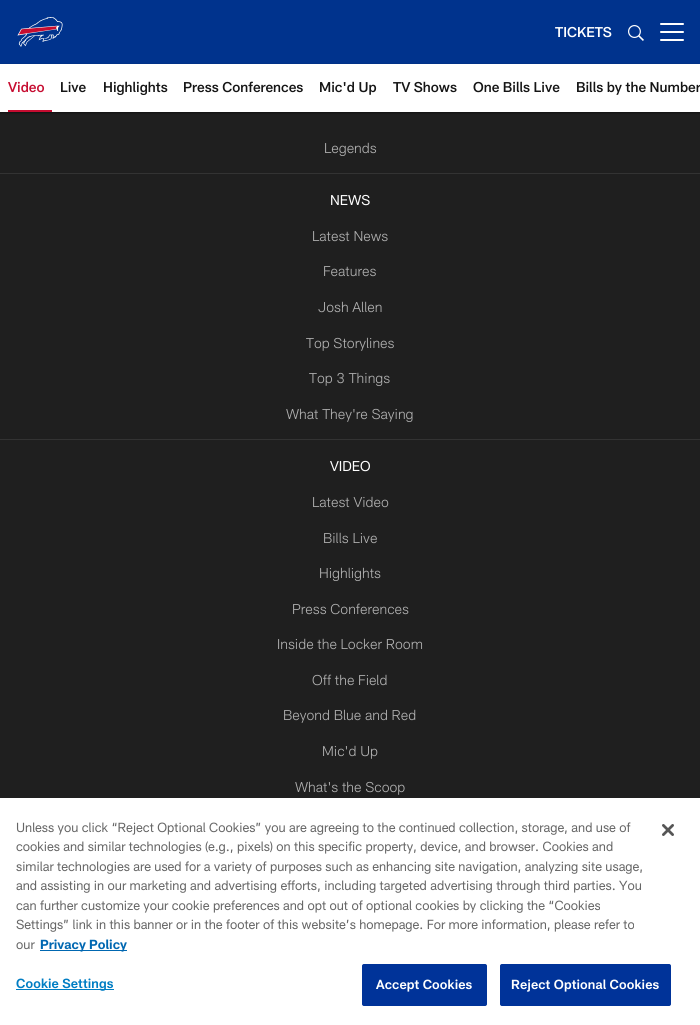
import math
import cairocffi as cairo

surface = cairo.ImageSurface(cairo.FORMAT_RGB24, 700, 1025)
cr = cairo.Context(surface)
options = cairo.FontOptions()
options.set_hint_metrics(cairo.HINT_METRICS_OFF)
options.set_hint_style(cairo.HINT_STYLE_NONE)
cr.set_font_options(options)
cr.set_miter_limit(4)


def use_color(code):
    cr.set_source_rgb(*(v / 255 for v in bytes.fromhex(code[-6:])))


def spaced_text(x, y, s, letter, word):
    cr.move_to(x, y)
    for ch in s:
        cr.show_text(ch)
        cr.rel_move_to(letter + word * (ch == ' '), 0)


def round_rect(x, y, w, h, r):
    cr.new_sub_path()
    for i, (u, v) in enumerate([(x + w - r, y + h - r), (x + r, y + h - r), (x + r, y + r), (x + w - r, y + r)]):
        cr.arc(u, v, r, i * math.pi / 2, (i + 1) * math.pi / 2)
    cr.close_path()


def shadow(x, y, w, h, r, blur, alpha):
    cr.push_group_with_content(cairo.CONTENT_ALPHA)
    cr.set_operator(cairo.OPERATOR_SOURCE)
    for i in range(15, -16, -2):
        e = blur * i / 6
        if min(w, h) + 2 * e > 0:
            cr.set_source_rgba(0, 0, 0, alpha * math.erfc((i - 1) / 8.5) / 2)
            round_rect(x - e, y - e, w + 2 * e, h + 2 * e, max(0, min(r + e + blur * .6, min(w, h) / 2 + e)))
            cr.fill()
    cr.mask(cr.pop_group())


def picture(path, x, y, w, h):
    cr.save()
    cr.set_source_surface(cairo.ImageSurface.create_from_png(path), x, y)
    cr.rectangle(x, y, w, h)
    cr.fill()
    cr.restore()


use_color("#1f1f1f")
cr.paint()
use_color("#00338d")
cr.rectangle(0, 0, 700, 64)
cr.fill()
picture("img1.png", 17, 17, 46, 30)
cr.select_font_face("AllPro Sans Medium")
cr.set_font_size(14)
use_color("#ffffff")
cr.move_to(555, 37)
cr.show_text("TICKETS")
picture("img2.png", 628, 25, 16, 16)
round_rect(660, 31, 24, 2, 1)
cr.fill()
round_rect(660, 23, 24, 2, 1)
cr.fill()
round_rect(660, 39, 24, 2, 1)
cr.fill()
use_color("#000000")
shadow(0, 65, 700, 48, 0, 1, 0.47)
use_color("#ffffff")
cr.rectangle(0, 64, 700, 48)
cr.fill()
use_color("#c60c30")
cr.rectangle(8, 110, 44, 2)
cr.fill()
cr.move_to(8, 92)
cr.show_text("Video")
use_color("#151515")
cr.move_to(60, 92)
cr.show_text("Live")
cr.move_to(103, 92)
cr.show_text("Highlights")
cr.move_to(183, 92)
cr.show_text("Press Conferences")
cr.move_to(319, 92)
cr.show_text("Mic'd Up")
cr.move_to(393, 92)
cr.show_text("TV Shows")
cr.move_to(473, 92)
cr.show_text("One Bills Live")
cr.move_to(576, 92)
cr.show_text("Bills by the Number")
cr.select_font_face("AllPro Sans Light")
use_color("#b2b2b2")
cr.move_to(324, 153)
cr.show_text("Legends")
use_color("#333333")
cr.rectangle(0, 173, 700, 1)
cr.fill()
cr.select_font_face("AllPro Sans")
use_color("#ffffff")
cr.move_to(330, 205)
cr.show_text("NEWS")
cr.select_font_face("AllPro Sans Light")
use_color("#b2b2b2")
cr.move_to(312, 241)
cr.show_text("Latest News")
cr.move_to(323, 276)
cr.show_text("Features")
cr.move_to(318, 312)
cr.show_text("Josh Allen")
cr.move_to(306, 348)
cr.show_text("Top Storylines")
cr.move_to(309, 383)
cr.show_text("Top 3 Things")
cr.move_to(286, 419)
cr.show_text("What They're Saying")
use_color("#333333")
cr.rectangle(0, 439, 700, 1)
cr.fill()
cr.select_font_face("AllPro Sans")
use_color("#ffffff")
cr.move_to(330, 471)
cr.show_text("VIDEO")
cr.select_font_face("AllPro Sans Light")
use_color("#b2b2b2")
cr.move_to(312, 507)
cr.show_text("Latest Video")
cr.move_to(323, 543)
cr.show_text("Bills Live")
cr.move_to(319, 578)
cr.show_text("Highlights")
cr.move_to(292, 614)
cr.show_text("Press Conferences")
cr.move_to(277, 649)
cr.show_text("Inside the Locker Room")
cr.move_to(312, 685)
cr.show_text("Off the Field")
cr.move_to(283, 720)
cr.show_text("Beyond Blue and Red")
cr.move_to(322, 756)
cr.show_text("Mic'd Up")
cr.move_to(295, 792)
cr.show_text("What's the Scoop")
use_color("#ffffff")
cr.rectangle(0, 798, 700, 227)
cr.fill()
cr.select_font_face("AllPro Sans")
cr.set_font_size(13)
use_color("#666666")
cr.move_to(16, 832)
cr.show_text("Unless you click “Reject Optional Cookies” you are agreeing to the continued collection, storage, and use of")
cr.move_to(16, 851)
cr.show_text("cookies and similar technologies (e.g., pixels) on this specific property, device, and browser. Cookies and")
cr.move_to(16, 871)
cr.show_text("similar technologies are used for a variety of purposes such as enhancing site navigation, analyzing site usage,")
cr.move_to(16, 890)
cr.show_text("and assisting in our marketing and advertising efforts, including targeted advertising through third parties. You")
cr.move_to(16, 910)
cr.show_text("can further customize your cookie preferences and opt out of optional cookies by clicking the “Cookies")
cr.move_to(16, 929)
cr.show_text("Settings” link in this banner or in the footer of this website’s homepage. For more information, please refer to")
cr.move_to(16, 949)
cr.show_text("our")
use_color("#0067b1")
cr.rectangle(40, 950, 87, 1)
cr.fill()
cr.select_font_face("AllPro Sans", cairo.FONT_SLANT_NORMAL, cairo.FONT_WEIGHT_BOLD)
cr.move_to(40, 949)
cr.show_text("Privacy Policy")
use_color("#007dc3")
cr.rectangle(16, 989, 98, 1)
cr.fill()
cr.select_font_face("AllPro Sans SemiBold")
spaced_text(16, 988, "Cookie Settings", 0.1, 0)
use_color("#003399")
round_rect(362.5, 964.5, 124, 41, 1.5)
cr.fill_preserve()
cr.set_line_width(1)
cr.stroke()
use_color("#ffffff")
spaced_text(376, 989, "Accept Cookies", 0.1, 0)
use_color("#003399")
round_rect(500.5, 964.5, 170, 41, 1.5)
cr.fill_preserve()
cr.stroke()
use_color("#ffffff")
spaced_text(511, 989, "Reject Optional Cookies", 0.1, 0)
picture("img3.png", 662, 824, 12, 12)
surface.write_to_png("result.png")
